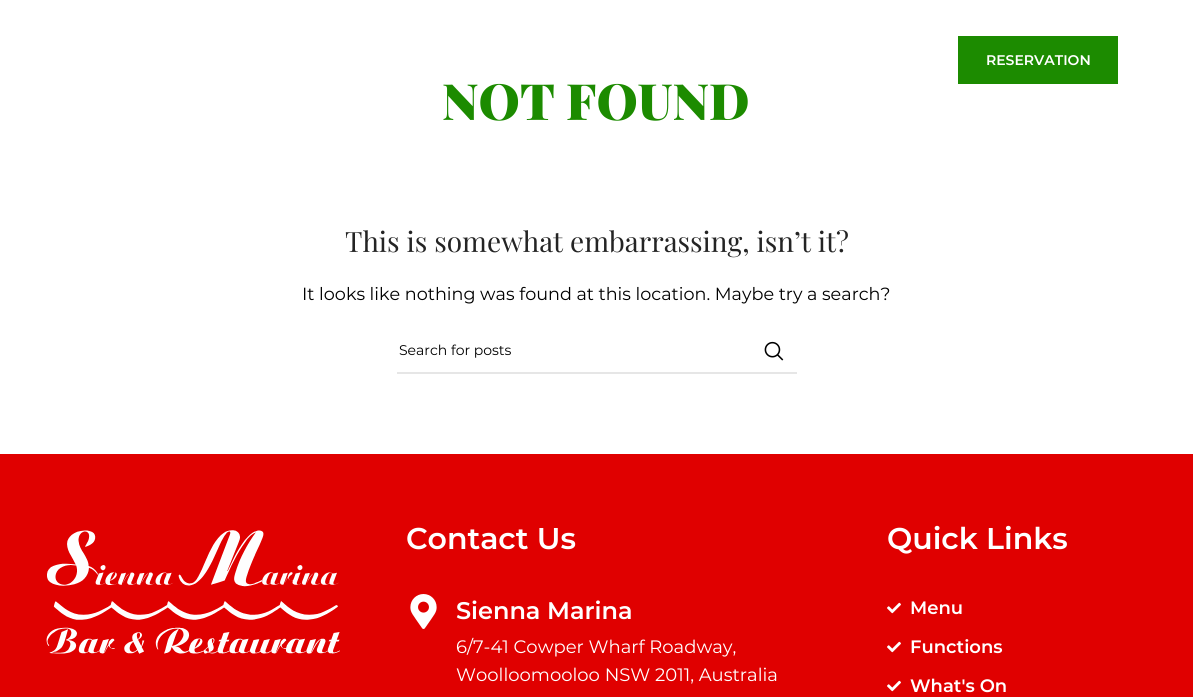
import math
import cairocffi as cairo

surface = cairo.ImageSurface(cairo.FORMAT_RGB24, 1193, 697)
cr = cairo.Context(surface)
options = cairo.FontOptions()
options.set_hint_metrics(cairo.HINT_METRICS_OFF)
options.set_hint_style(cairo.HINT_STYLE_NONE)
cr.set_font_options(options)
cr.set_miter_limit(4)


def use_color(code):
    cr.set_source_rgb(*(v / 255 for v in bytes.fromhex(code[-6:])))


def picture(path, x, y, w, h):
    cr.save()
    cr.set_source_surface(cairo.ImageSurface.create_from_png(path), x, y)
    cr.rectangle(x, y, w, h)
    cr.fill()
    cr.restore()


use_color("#ffffff")
cr.paint()
use_color("#1c8b00")
cr.rectangle(958, 36, 160, 48)
cr.fill()
cr.select_font_face("Montserrat SemiBold")
cr.set_font_size(14)
use_color("#ffffff")
cr.move_to(986, 65)
cr.show_text("RESERVATION")
cr.select_font_face("Playfair Display Black")
cr.set_font_size(50)
use_color("#1c8b00")
cr.move_to(442, 120)
cr.show_text("NOT FOUND")
cr.select_font_face("Playfair Display")
cr.set_font_size(28)
use_color("#242424")
cr.move_to(345, 252)
cr.show_text("This is somewhat embarrassing, isn’t it?")
cr.select_font_face("Montserrat")
cr.set_font_size(17.6)
use_color("#000000")
cr.move_to(302, 300)
cr.show_text("It looks like nothing was found at this location. Maybe try a search?")
use_color("#e6e6e6")
cr.rectangle(397, 372, 400, 2)
cr.fill()
cr.set_font_size(14)
use_color("#000000")
cr.move_to(399, 355)
cr.show_text("Search for posts")
picture("img1.png", 764, 341, 20, 20)
use_color("#e00000")
cr.rectangle(0, 454, 1193, 243)
cr.fill()
picture("img2.png", 46, 530, 294, 124)
cr.select_font_face("Montserrat SemiBold")
cr.set_font_size(30)
use_color("#ffffff")
cr.move_to(406, 549)
cr.show_text("Contact Us")
picture("img3.png", 410, 594, 27, 35)
cr.set_font_size(24)
cr.move_to(456, 619)
cr.show_text("Sienna Marina")
cr.select_font_face("Montserrat")
cr.set_font_size(18)
cr.move_to(456, 653)
cr.show_text("6/7-41 Cowper Wharf Roadway,")
cr.move_to(456, 681)
cr.show_text("Woolloomooloo NSW 2011, Australia")
cr.select_font_face("Montserrat SemiBold")
cr.set_font_size(30)
cr.move_to(887, 549)
cr.show_text("Quick Links")
picture("img4.png", 887, 602, 14, 12)
cr.set_font_size(18)
cr.move_to(910, 614)
cr.show_text("Menu")
picture("img4.png", 887, 641, 14, 12)
cr.move_to(910, 653)
cr.show_text("Functions")
picture("img4.png", 887, 680, 14, 12)
cr.move_to(910, 692)
cr.show_text("What's On")
surface.write_to_png("result.png")
